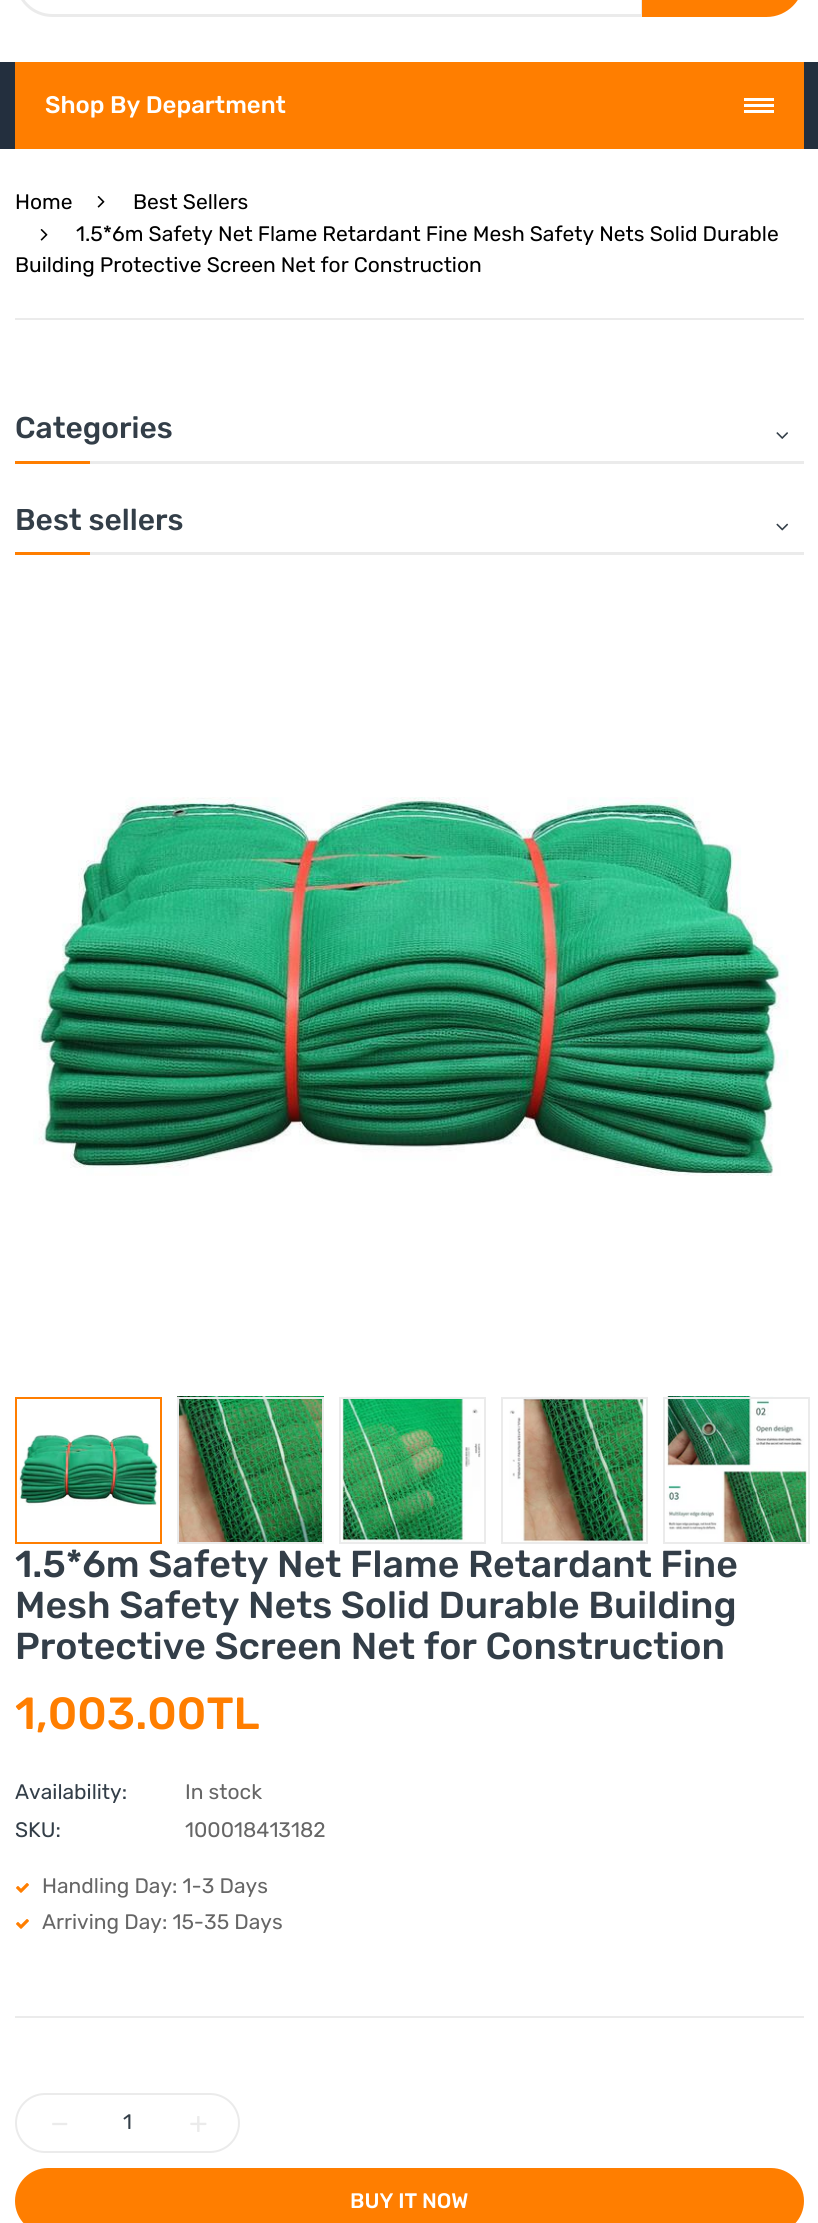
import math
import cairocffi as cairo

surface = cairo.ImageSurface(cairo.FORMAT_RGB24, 818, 2223)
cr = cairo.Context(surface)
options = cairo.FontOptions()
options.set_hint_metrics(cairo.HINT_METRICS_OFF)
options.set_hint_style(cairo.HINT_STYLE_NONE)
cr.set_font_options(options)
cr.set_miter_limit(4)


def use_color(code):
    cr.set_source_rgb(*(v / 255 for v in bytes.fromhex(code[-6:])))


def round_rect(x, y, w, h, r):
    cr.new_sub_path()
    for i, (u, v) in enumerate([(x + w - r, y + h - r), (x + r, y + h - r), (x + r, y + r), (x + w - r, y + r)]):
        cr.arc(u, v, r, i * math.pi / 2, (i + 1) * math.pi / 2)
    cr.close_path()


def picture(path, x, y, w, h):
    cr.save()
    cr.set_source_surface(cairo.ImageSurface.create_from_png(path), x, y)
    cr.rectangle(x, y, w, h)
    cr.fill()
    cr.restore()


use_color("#ffffff")
cr.paint()
cr.new_path()
cr.move_to(52.5, -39.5)
cr.line_to(642.5, -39.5)
cr.line_to(642.5, 15.5)
cr.line_to(52.5, 15.5)
cr.curve_to(32.5, 15.5, 16.5, -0.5, 16.5, -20.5)
cr.line_to(16.5, -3.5)
cr.curve_to(16.5, -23.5, 32.5, -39.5, 52.5, -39.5)
cr.close_path()
use_color("#ebebeb")
cr.set_line_width(3)
cr.stroke()
use_color("#ff7e00")
cr.new_path()
cr.move_to(642, -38)
cr.line_to(766.5, -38)
cr.curve_to(787, -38, 804, -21, 804, -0.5)
cr.line_to(804, -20.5)
cr.curve_to(804, 0, 787, 17, 766.5, 17)
cr.line_to(642, 17)
cr.close_path()
cr.fill()
use_color("#232f3e")
cr.rectangle(0, 62, 818, 87)
cr.fill()
use_color("#ff7e00")
cr.rectangle(15, 62, 789, 87)
cr.fill()
cr.select_font_face("Rubik Medium")
cr.set_font_size(24)
use_color("#ffffff")
cr.move_to(45, 113)
cr.show_text("Shop By Department")
cr.rectangle(744, 98, 30, 3)
cr.fill()
cr.rectangle(744, 104, 30, 3)
cr.fill()
cr.rectangle(744, 110, 30, 3)
cr.fill()
use_color("#ebebeb")
cr.rectangle(15, 318, 789, 2)
cr.fill()
cr.select_font_face("Rubik")
cr.set_font_size(21)
use_color("#000000")
cr.move_to(15, 209)
cr.show_text("Home")
picture("img1.png", 97, 196, 8, 12)
cr.move_to(133, 209)
cr.show_text("Best Sellers")
picture("img1.png", 40, 229, 8, 12)
cr.move_to(76, 241)
cr.show_text("1.5*6m Safety Net Flame Retardant Fine Mesh Safety Nets Solid Durable")
cr.move_to(15, 272)
cr.show_text("Building Protective Screen Net for Construction")
use_color("#ebebeb")
cr.rectangle(90, 461, 714, 3)
cr.fill()
cr.select_font_face("Rubik Medium")
cr.set_font_size(30)
use_color("#333e48")
cr.move_to(15, 438)
cr.show_text("Categories")
picture("img2.png", 776, 432, 12, 7)
use_color("#ff7e00")
cr.rectangle(15, 461, 75, 3)
cr.fill()
use_color("#ebebeb")
cr.rectangle(90, 552, 714, 3)
cr.fill()
use_color("#333e48")
cr.move_to(15, 530)
cr.show_text("Best sellers")
picture("img3.png", 776, 523, 13, 8)
use_color("#ff7e00")
cr.rectangle(15, 552, 75, 3)
cr.fill()
picture("img4.png", 33, 797, 756, 379)
picture("img5.png", 17, 1434, 143, 72)
cr.rectangle(16, 1398, 145, 145)
cr.set_line_width(2)
cr.stroke()
picture("img6.png", 177, 1396, 147, 146)
cr.rectangle(178, 1398, 145, 145)
use_color("#ebebeb")
cr.stroke()
picture("img7.png", 339, 1396, 143, 146)
cr.rectangle(340, 1398, 145, 145)
cr.stroke()
picture("img8.png", 509, 1396, 139, 146)
cr.rectangle(502, 1398, 145, 145)
cr.stroke()
picture("img9.png", 663, 1396, 147, 146)
cr.rectangle(664, 1398, 145, 145)
cr.stroke()
cr.set_font_size(37.5)
use_color("#333e48")
cr.move_to(15, 1577)
cr.show_text("1.5*6m Safety Net Flame Retardant Fine")
cr.move_to(15, 1618)
cr.show_text("Mesh Safety Nets Solid Durable Building")
cr.move_to(15, 1659)
cr.show_text("Protective Screen Net for Construction")
cr.set_font_size(45)
use_color("#ff7e00")
cr.move_to(15, 1729)
cr.show_text("1,003.00TL")
cr.select_font_face("Rubik")
cr.set_font_size(21)
use_color("#333e48")
cr.move_to(15, 1799)
cr.show_text("Availability:")
use_color("#666666")
cr.move_to(185, 1799)
cr.show_text("In stock")
use_color("#333e48")
cr.move_to(15, 1837)
cr.show_text("SKU:")
use_color("#666666")
cr.move_to(185, 1837)
cr.show_text("100018413182")
picture("img10.png", 16, 1883, 13, 10)
cr.move_to(42, 1893)
cr.show_text("Handling Day: 1-3 Days")
picture("img10.png", 16, 1919, 13, 10)
cr.move_to(42, 1929)
cr.show_text("Arriving Day: 15-35 Days")
use_color("#ebebeb")
cr.rectangle(15, 2016, 789, 2)
cr.fill()
round_rect(16, 2094, 223, 58, 29)
cr.stroke()
cr.set_font_size(30)
cr.move_to(50, 2133)
cr.show_text("−")
cr.set_font_size(21)
use_color("#333e48")
cr.move_to(123, 2129)
cr.show_text("1")
cr.set_font_size(30)
use_color("#ebebeb")
cr.move_to(189, 2133)
cr.show_text("+")
use_color("#ff7e00")
round_rect(16.5, 2169.5, 786, 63, 31.5)
cr.fill_preserve()
cr.set_line_width(3)
cr.stroke()
cr.select_font_face("Rubik Medium")
cr.set_font_size(21)
use_color("#ffffff")
cr.move_to(350, 2208)
cr.show_text("BUY IT NOW")
surface.write_to_png("result.png")
